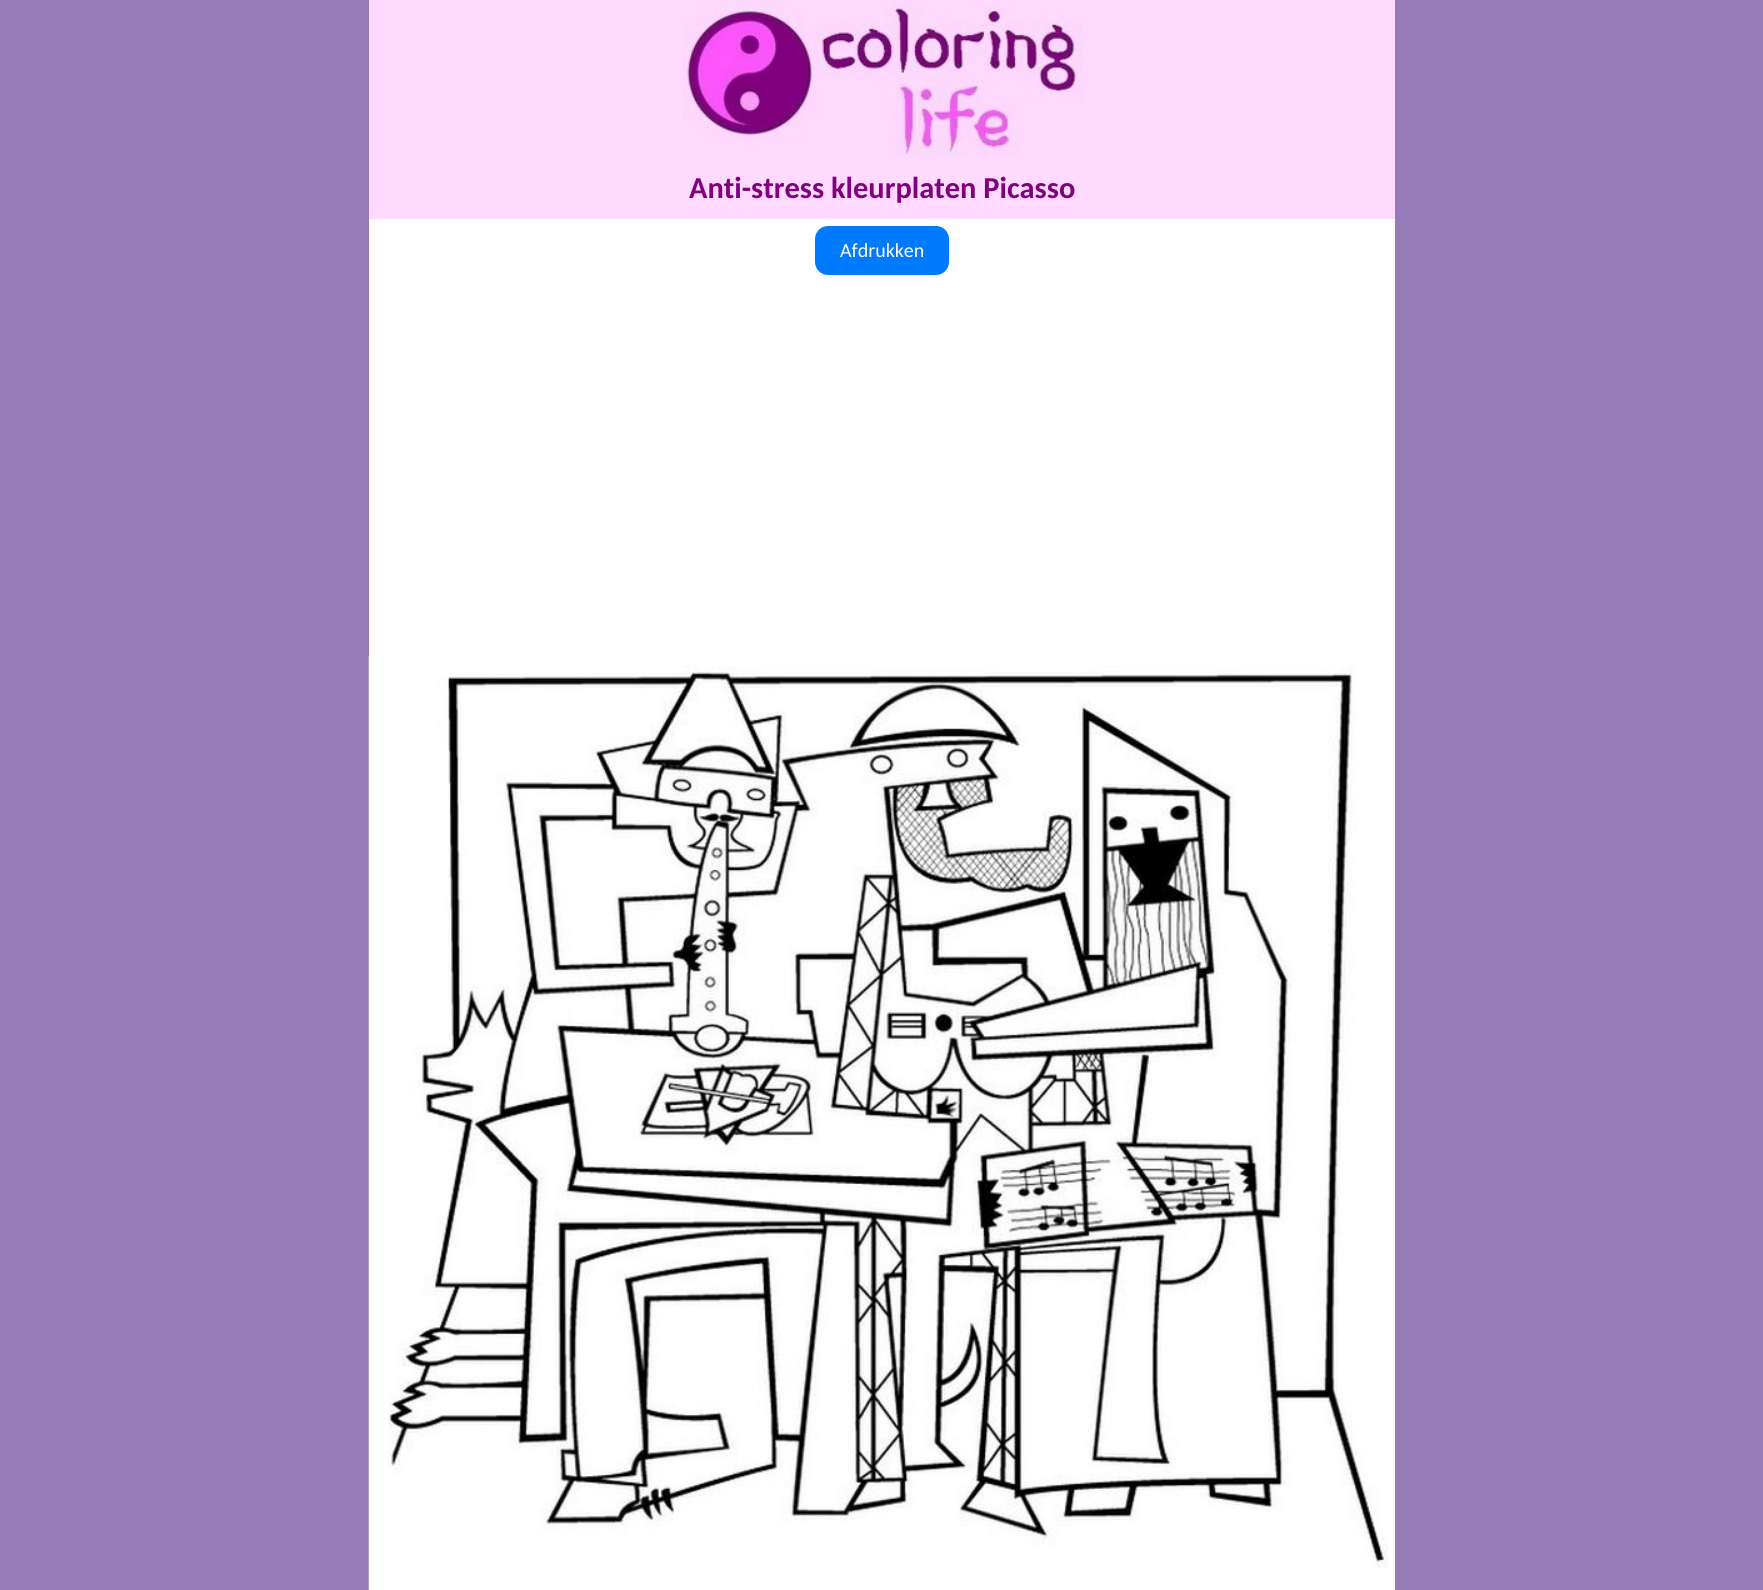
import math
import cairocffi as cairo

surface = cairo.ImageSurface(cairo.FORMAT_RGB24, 1763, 1590)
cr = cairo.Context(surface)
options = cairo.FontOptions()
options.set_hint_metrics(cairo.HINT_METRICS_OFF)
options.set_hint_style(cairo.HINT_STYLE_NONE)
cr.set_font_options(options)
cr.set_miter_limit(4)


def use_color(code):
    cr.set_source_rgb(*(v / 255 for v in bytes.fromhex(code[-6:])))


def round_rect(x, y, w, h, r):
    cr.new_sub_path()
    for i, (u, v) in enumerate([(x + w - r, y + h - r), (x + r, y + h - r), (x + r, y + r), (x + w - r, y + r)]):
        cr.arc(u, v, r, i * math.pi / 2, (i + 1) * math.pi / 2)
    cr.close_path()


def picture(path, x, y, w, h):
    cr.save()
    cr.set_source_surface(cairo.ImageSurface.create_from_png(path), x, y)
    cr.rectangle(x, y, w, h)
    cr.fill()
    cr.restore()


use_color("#957bb7")
cr.paint()
use_color("#ffd9ff")
cr.rectangle(369, 0, 1026, 219)
cr.fill()
picture("img1.png", 682, 0, 401, 156)
cr.select_font_face("Carlito", cairo.FONT_SLANT_NORMAL, cairo.FONT_WEIGHT_BOLD)
cr.set_font_size(30.4)
use_color("#800080")
cr.move_to(689, 198)
cr.show_text("Anti-stress kleurplaten Picasso")
use_color("#ffffff")
cr.rectangle(369, 219, 1026, 1371)
cr.fill()
use_color("#007bff")
round_rect(815, 226, 134, 49, 13)
cr.fill()
cr.select_font_face("Carlito")
cr.set_font_size(20)
use_color("#ffffff")
cr.move_to(840, 257)
cr.show_text("Afdrukken")
picture("img2.png", 368, 656, 1021, 934)
surface.write_to_png("result.png")
